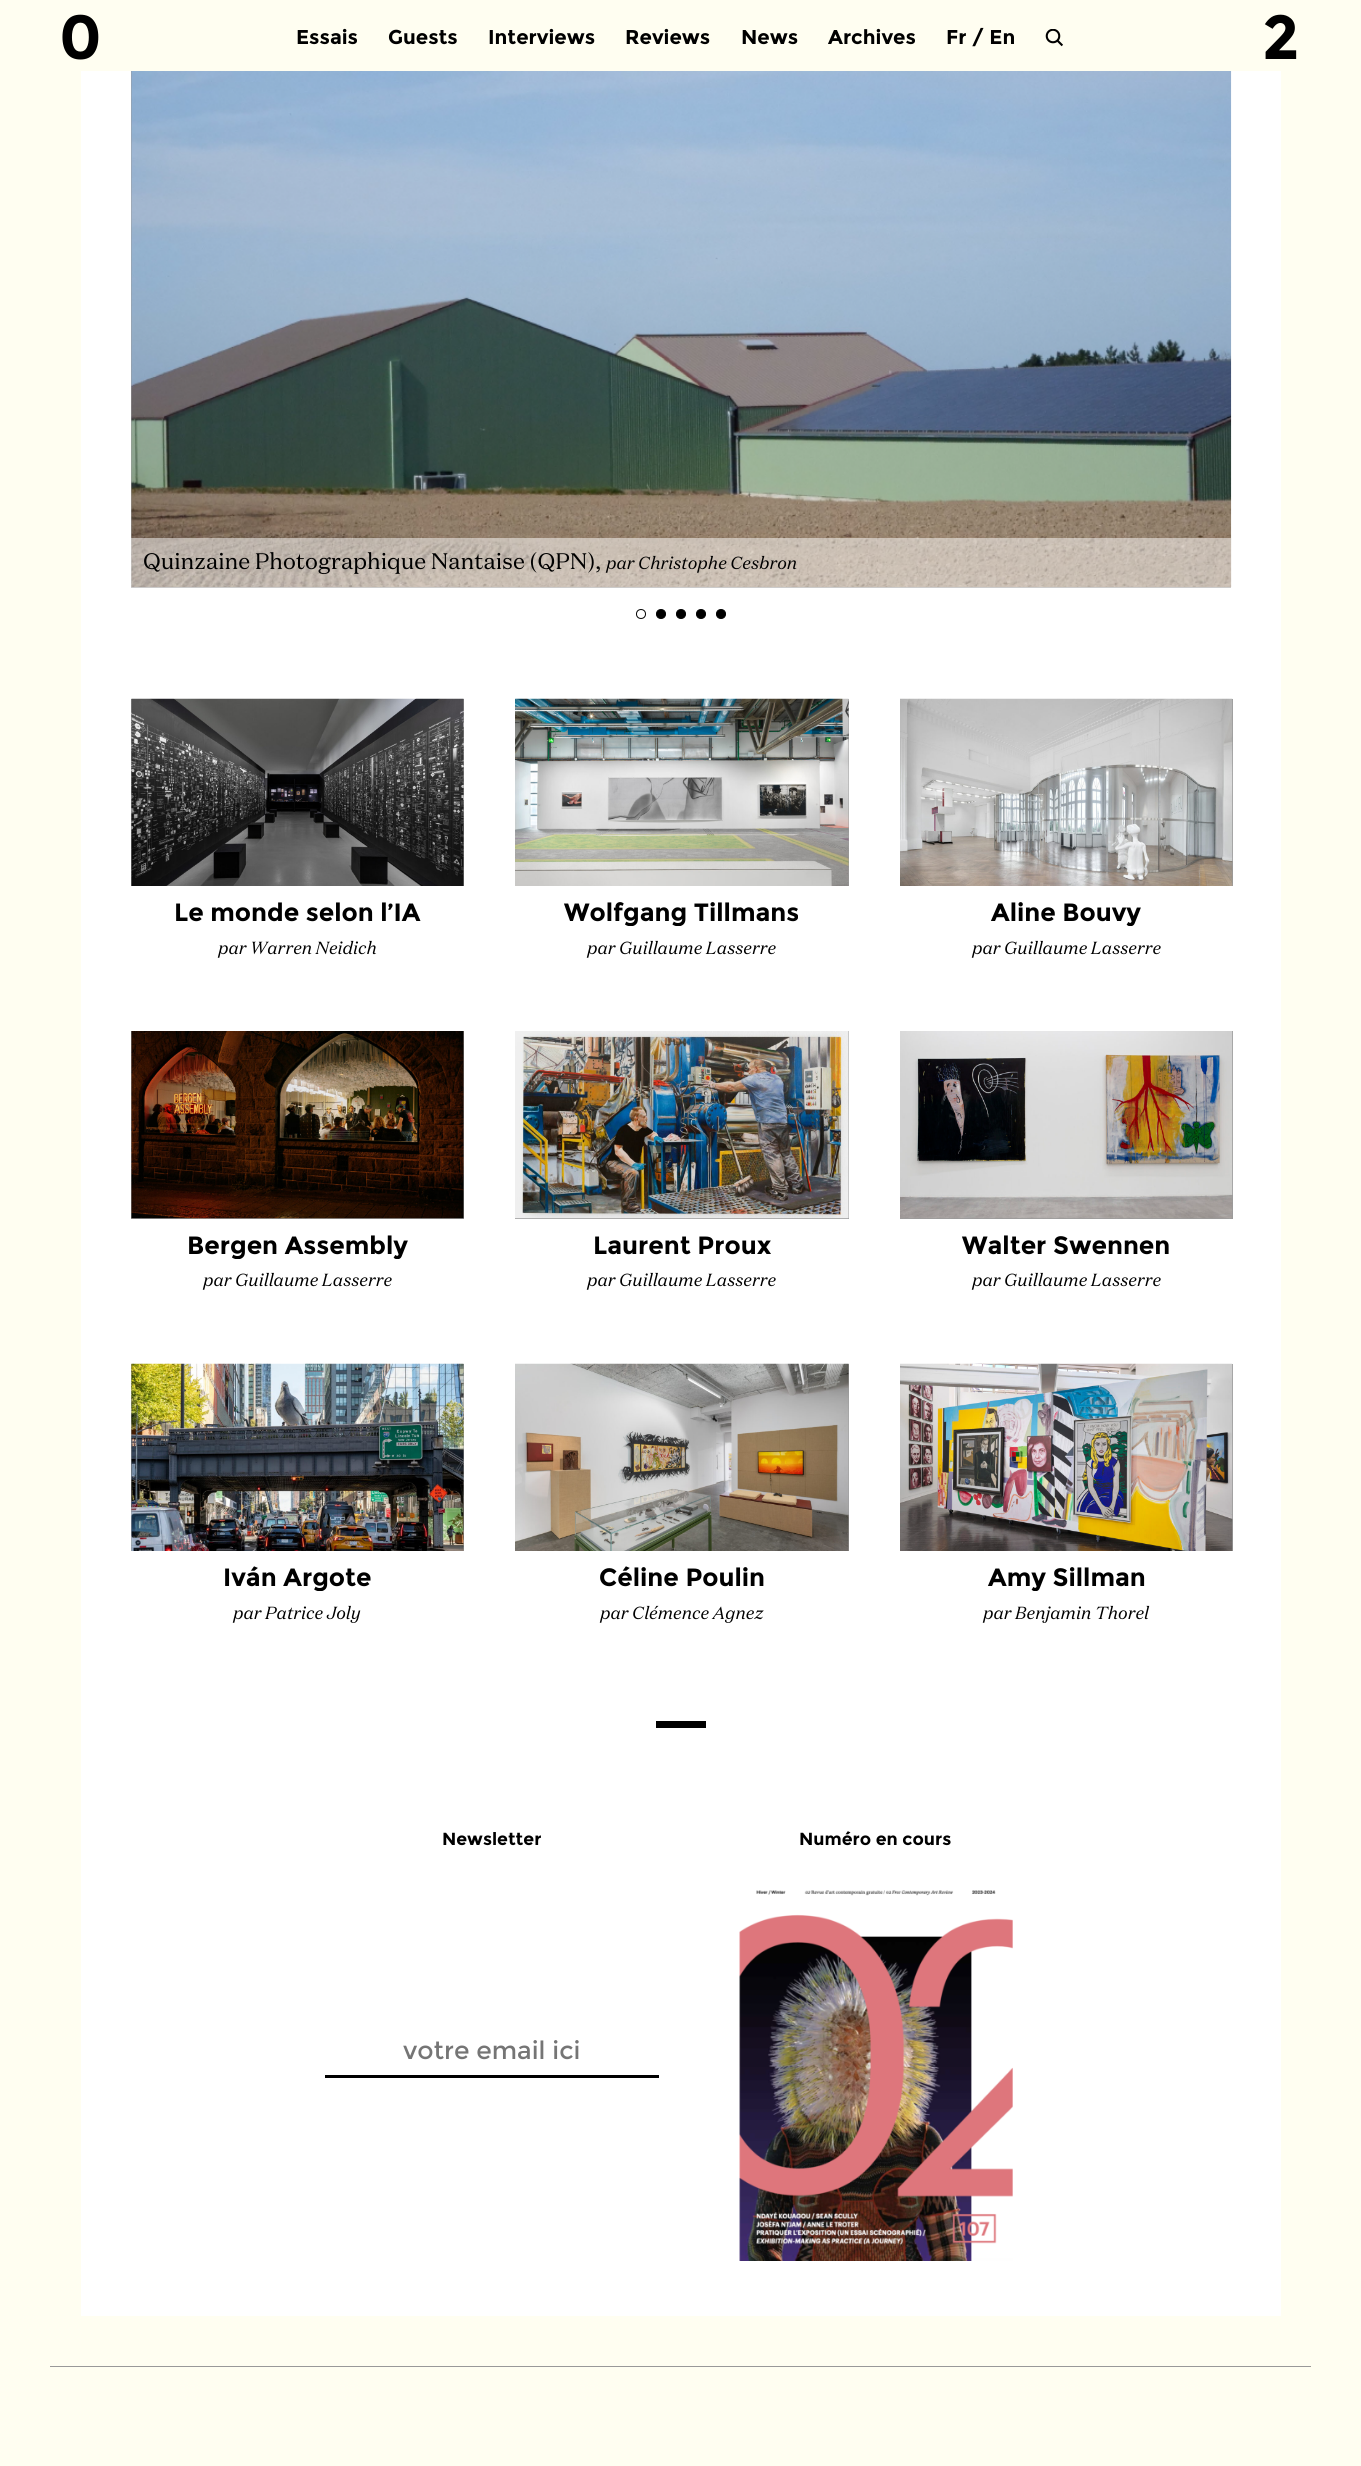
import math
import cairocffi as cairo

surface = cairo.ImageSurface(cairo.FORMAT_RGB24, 1361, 2466)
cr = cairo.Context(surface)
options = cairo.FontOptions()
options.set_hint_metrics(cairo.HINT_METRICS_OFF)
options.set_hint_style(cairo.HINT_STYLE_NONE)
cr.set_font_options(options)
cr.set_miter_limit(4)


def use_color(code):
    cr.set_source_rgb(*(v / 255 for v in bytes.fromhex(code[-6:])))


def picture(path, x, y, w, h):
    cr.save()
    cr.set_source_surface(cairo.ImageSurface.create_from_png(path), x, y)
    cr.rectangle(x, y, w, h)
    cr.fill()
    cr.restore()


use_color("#fffef1")
cr.paint()
cr.select_font_face("Montserrat", cairo.FONT_SLANT_NORMAL, cairo.FONT_WEIGHT_BOLD)
cr.set_font_size(62)
use_color("#000000")
cr.move_to(59, 59)
cr.show_text("0")
cr.set_font_size(20)
cr.move_to(296, 44)
cr.show_text("Essais")
cr.move_to(388, 44)
cr.show_text("Guests")
cr.move_to(488, 44)
cr.show_text("Interviews")
cr.move_to(625, 44)
cr.show_text("Reviews")
cr.move_to(741, 44)
cr.show_text("News")
cr.move_to(828, 44)
cr.show_text("Archives")
cr.move_to(946, 44)
cr.show_text("Fr / En")
picture("img1.png", 1045, 29, 18, 18)
cr.set_font_size(62)
cr.move_to(1262, 59)
cr.show_text("2")
use_color("#999999")
cr.rectangle(50, 2366, 1261, 1)
cr.fill()
use_color("#ffffff")
cr.rectangle(81, 71, 1200, 2245)
cr.fill()
use_color("#999999")
cr.rectangle(131, 71, 1100, 517)
cr.fill()
picture("img2.png", 131, 71, 1101, 517)
cr.set_source_rgba(1, 1, 1, 0.5)
cr.rectangle(131, 538, 1100, 50)
cr.fill()
cr.select_font_face("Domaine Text")
cr.set_font_size(22.5)
use_color("#000000")
cr.move_to(143, 569)
cr.show_text("Quinzaine Photographique Nantaise (QPN),")
cr.select_font_face("Domaine Text", cairo.FONT_SLANT_ITALIC)
cr.set_font_size(17.5)
cr.move_to(606, 569)
cr.show_text("par Christophe Cesbron")
cr.new_path()
cr.arc(641, 614, 4.5, 0, 2 * math.pi)
cr.set_line_width(1)
cr.stroke()
cr.arc(661, 614, 4.5, 0, 2 * math.pi)
cr.fill_preserve()
cr.stroke()
cr.arc(681, 614, 4.5, 0, 2 * math.pi)
cr.fill_preserve()
cr.stroke()
cr.arc(701, 614, 4.5, 0, 2 * math.pi)
cr.fill_preserve()
cr.stroke()
cr.arc(721, 614, 4.5, 0, 2 * math.pi)
cr.fill_preserve()
cr.stroke()
use_color("#999999")
cr.rectangle(131, 699, 333, 187)
cr.fill()
picture("img3.png", 131, 698, 333, 188)
cr.select_font_face("Montserrat", cairo.FONT_SLANT_NORMAL, cairo.FONT_WEIGHT_BOLD)
cr.set_font_size(25)
use_color("#000000")
cr.move_to(174, 921)
cr.show_text("Le monde selon l’IA")
cr.select_font_face("Domaine Text", cairo.FONT_SLANT_ITALIC)
cr.set_font_size(17.5)
cr.move_to(218, 954)
cr.show_text("par Warren Neidich")
use_color("#999999")
cr.rectangle(848, 699, 1, 187)
cr.fill()
picture("img4.png", 515, 698, 334, 188)
cr.save()
cr.rectangle(515, 899, 334, 27)
cr.clip()
cr.select_font_face("Montserrat", cairo.FONT_SLANT_NORMAL, cairo.FONT_WEIGHT_BOLD)
cr.set_font_size(25)
use_color("#000000")
cr.move_to(564, 921)
cr.show_text("Wolfgang Tillmans")
cr.restore()
use_color("#000000")
cr.move_to(587, 954)
cr.show_text("par Guillaume Lasserre")
use_color("#999999")
cr.rectangle(1232, 699, 1, 187)
cr.fill()
picture("img5.png", 900, 698, 333, 188)
cr.save()
cr.rectangle(900, 899, 333, 27)
cr.clip()
cr.select_font_face("Montserrat", cairo.FONT_SLANT_NORMAL, cairo.FONT_WEIGHT_BOLD)
cr.set_font_size(25)
use_color("#000000")
cr.move_to(991, 921)
cr.show_text("Aline Bouvy")
cr.restore()
use_color("#000000")
cr.move_to(972, 954)
cr.show_text("par Guillaume Lasserre")
use_color("#999999")
cr.rectangle(131, 1031, 333, 188)
cr.fill()
picture("img6.png", 131, 1031, 333, 188)
cr.save()
cr.rectangle(131, 1231, 333, 28)
cr.clip()
cr.select_font_face("Montserrat", cairo.FONT_SLANT_NORMAL, cairo.FONT_WEIGHT_BOLD)
cr.set_font_size(25)
use_color("#000000")
cr.move_to(187, 1254)
cr.show_text("Bergen Assembly")
cr.restore()
use_color("#000000")
cr.move_to(203, 1286)
cr.show_text("par Guillaume Lasserre")
use_color("#999999")
cr.rectangle(515, 1031, 334, 188)
cr.fill()
picture("img7.png", 515, 1031, 334, 188)
cr.select_font_face("Montserrat", cairo.FONT_SLANT_NORMAL, cairo.FONT_WEIGHT_BOLD)
cr.set_font_size(25)
use_color("#000000")
cr.move_to(593, 1254)
cr.show_text("Laurent Proux")
cr.select_font_face("Domaine Text", cairo.FONT_SLANT_ITALIC)
cr.set_font_size(17.5)
cr.move_to(587, 1286)
cr.show_text("par Guillaume Lasserre")
use_color("#999999")
cr.rectangle(900, 1031, 333, 188)
cr.fill()
picture("img8.png", 900, 1031, 333, 188)
cr.select_font_face("Montserrat", cairo.FONT_SLANT_NORMAL, cairo.FONT_WEIGHT_BOLD)
cr.set_font_size(25)
use_color("#000000")
cr.move_to(962, 1254)
cr.show_text("Walter Swennen")
cr.select_font_face("Domaine Text", cairo.FONT_SLANT_ITALIC)
cr.set_font_size(17.5)
cr.move_to(972, 1286)
cr.show_text("par Guillaume Lasserre")
use_color("#999999")
cr.rectangle(131, 1364, 333, 187)
cr.fill()
picture("img9.png", 131, 1363, 333, 188)
cr.save()
cr.rectangle(131, 1564, 333, 27)
cr.clip()
cr.select_font_face("Montserrat", cairo.FONT_SLANT_NORMAL, cairo.FONT_WEIGHT_BOLD)
cr.set_font_size(25)
use_color("#000000")
cr.move_to(223, 1586)
cr.show_text("Iván Argote")
cr.restore()
use_color("#000000")
cr.move_to(233, 1619)
cr.show_text("par Patrice Joly")
use_color("#999999")
cr.rectangle(848, 1364, 1, 187)
cr.fill()
picture("img10.png", 515, 1363, 334, 188)
cr.select_font_face("Montserrat", cairo.FONT_SLANT_NORMAL, cairo.FONT_WEIGHT_BOLD)
cr.set_font_size(25)
use_color("#000000")
cr.move_to(599, 1586)
cr.show_text("Céline Poulin")
cr.select_font_face("Domaine Text", cairo.FONT_SLANT_ITALIC)
cr.set_font_size(17.5)
cr.move_to(600, 1619)
cr.show_text("par Clémence Agnez")
use_color("#999999")
cr.rectangle(1232, 1364, 1, 187)
cr.fill()
picture("img11.png", 900, 1363, 333, 188)
cr.save()
cr.rectangle(900, 1564, 333, 27)
cr.clip()
cr.select_font_face("Montserrat", cairo.FONT_SLANT_NORMAL, cairo.FONT_WEIGHT_BOLD)
cr.set_font_size(25)
use_color("#000000")
cr.move_to(988, 1586)
cr.show_text("Amy Sillman")
cr.restore()
use_color("#000000")
cr.move_to(983, 1619)
cr.show_text("par Benjamin Thorel")
cr.rectangle(656, 1721, 50, 7)
cr.fill()
cr.select_font_face("Montserrat", cairo.FONT_SLANT_NORMAL, cairo.FONT_WEIGHT_BOLD)
cr.move_to(442, 1845)
cr.show_text("Newsletter")
cr.rectangle(325, 2075, 334, 3)
cr.fill()
cr.select_font_face("Montserrat")
cr.set_font_size(25)
use_color("#757575")
cr.move_to(403, 2059)
cr.show_text("votre email ici")
cr.select_font_face("Montserrat", cairo.FONT_SLANT_NORMAL, cairo.FONT_WEIGHT_BOLD)
cr.set_font_size(17.5)
use_color("#000000")
cr.move_to(799, 1845)
cr.show_text("Numéro en cours")
picture("img12.png", 739, 1890, 274, 371)
surface.write_to_png("result.png")
